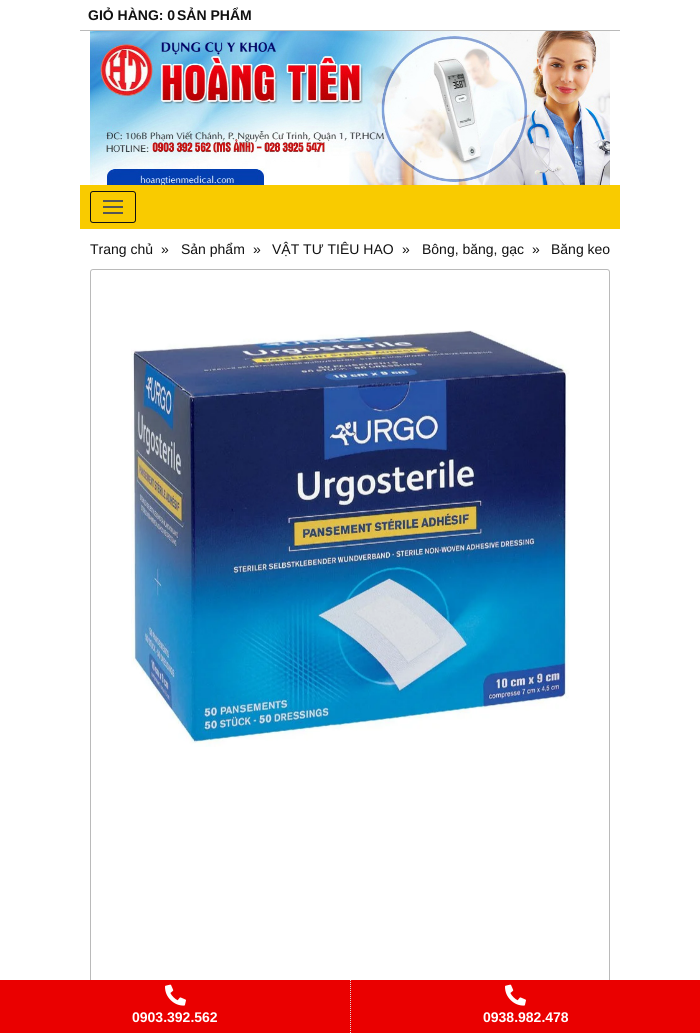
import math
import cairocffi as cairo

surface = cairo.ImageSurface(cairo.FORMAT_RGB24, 700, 1033)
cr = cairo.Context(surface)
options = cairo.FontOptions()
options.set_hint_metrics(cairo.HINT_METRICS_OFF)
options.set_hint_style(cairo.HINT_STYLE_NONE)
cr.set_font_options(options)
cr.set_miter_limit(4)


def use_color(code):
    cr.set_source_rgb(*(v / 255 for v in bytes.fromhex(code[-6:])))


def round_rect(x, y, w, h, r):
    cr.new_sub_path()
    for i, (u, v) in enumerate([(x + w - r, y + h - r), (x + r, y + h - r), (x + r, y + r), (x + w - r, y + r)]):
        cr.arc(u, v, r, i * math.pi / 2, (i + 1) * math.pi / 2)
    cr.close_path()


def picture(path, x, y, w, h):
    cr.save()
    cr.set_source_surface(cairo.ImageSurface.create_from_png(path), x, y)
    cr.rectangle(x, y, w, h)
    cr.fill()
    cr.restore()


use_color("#ffffff")
cr.paint()
use_color("#bababa")
cr.rectangle(80, 30, 540, 1)
cr.fill()
cr.select_font_face("Liberation Sans", cairo.FONT_SLANT_NORMAL, cairo.FONT_WEIGHT_BOLD)
cr.set_font_size(14)
use_color("#111111")
cr.move_to(88, 20)
cr.show_text("GIỎ HÀNG: 0")
cr.move_to(177, 20)
cr.show_text("SẢN PHẨM")
picture("img1.png", 90, 31, 520, 154)
use_color("#f9cb00")
cr.rectangle(80, 185, 540, 44)
cr.fill()
round_rect(90.5, 191.5, 45, 31, 2.5)
use_color("#111111")
cr.set_line_width(1)
cr.stroke()
use_color("#555555")
cr.rectangle(103, 206, 20, 2)
cr.fill()
cr.rectangle(103, 200, 20, 2)
cr.fill()
cr.rectangle(103, 212, 20, 2)
cr.fill()
cr.select_font_face("Liberation Sans")
use_color("#111111")
cr.move_to(90, 254)
cr.show_text("Trang chủ")
cr.move_to(161, 254)
cr.show_text("»")
cr.move_to(181, 254)
cr.show_text("Sản phẩm")
cr.move_to(253, 254)
cr.show_text("»")
cr.move_to(272, 254)
cr.show_text("VẬT TƯ TIÊU HAO")
cr.move_to(402, 254)
cr.show_text("»")
cr.move_to(422, 254)
cr.show_text("Bông, băng, gạc")
cr.move_to(532, 254)
cr.show_text("»")
cr.move_to(551, 254)
cr.show_text("Băng keo")
round_rect(90.5, 269.5, 519, 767, 2.5)
use_color("#bababa")
cr.stroke()
picture("img2.png", 131, 330, 439, 417)
use_color("#ea0000")
cr.rectangle(0, 980, 700, 53)
cr.fill()
picture("img3.png", 165, 984, 21, 22)
cr.select_font_face("Liberation Sans", cairo.FONT_SLANT_NORMAL, cairo.FONT_WEIGHT_BOLD)
use_color("#ffffff")
cr.move_to(132, 1022)
cr.show_text("0903.392.562")
cr.new_path()
cr.move_to(350.5, 980)
cr.line_to(350.5, 1033)
use_color("#dddddd")
cr.set_dash([1, 1])
cr.stroke()
picture("img3.png", 505, 984, 21, 22)
use_color("#ffffff")
cr.move_to(483, 1022)
cr.show_text("0938.982.478")
surface.write_to_png("result.png")
